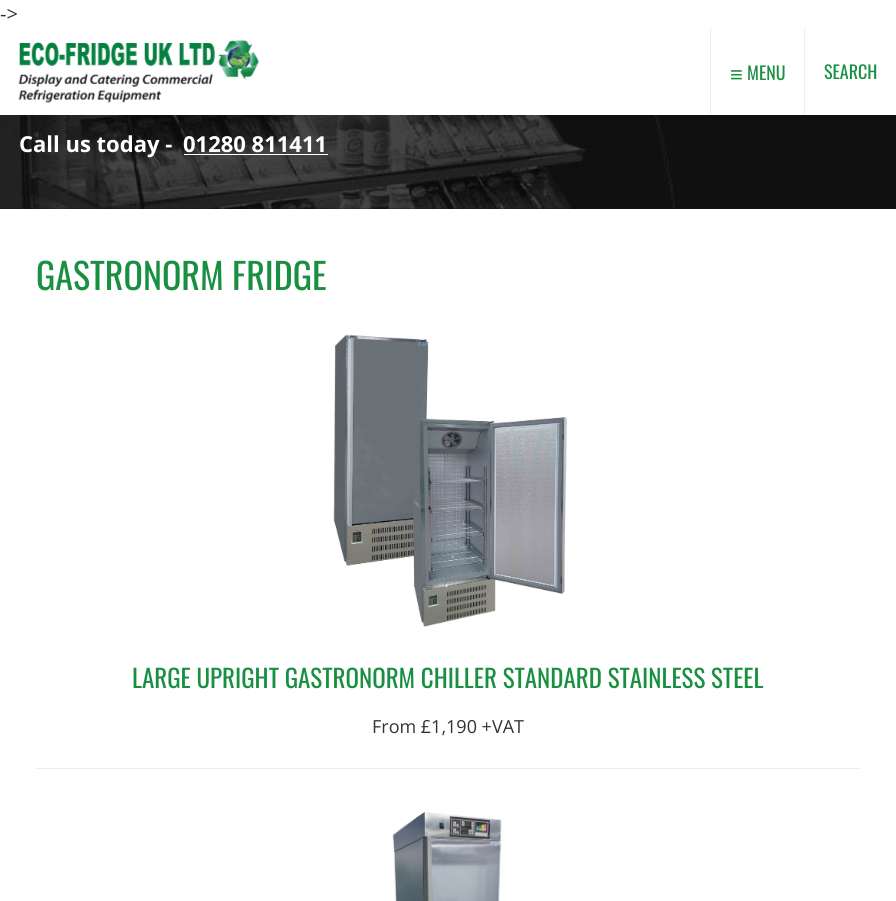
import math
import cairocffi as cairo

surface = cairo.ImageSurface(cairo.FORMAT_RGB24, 896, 901)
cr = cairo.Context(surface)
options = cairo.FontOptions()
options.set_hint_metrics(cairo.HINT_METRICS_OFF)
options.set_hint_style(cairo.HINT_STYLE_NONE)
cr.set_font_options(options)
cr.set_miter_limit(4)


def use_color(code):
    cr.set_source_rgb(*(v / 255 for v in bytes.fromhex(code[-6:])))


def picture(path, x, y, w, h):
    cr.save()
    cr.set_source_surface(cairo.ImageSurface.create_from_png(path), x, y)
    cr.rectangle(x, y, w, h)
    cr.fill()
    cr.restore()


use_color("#ffffff")
cr.paint()
cr.select_font_face("Open Sans")
cr.set_font_size(20)
use_color("#333333")
cr.move_to(0, 21)
cr.show_text("->")
picture("img1.png", 18, 40, 241, 63)
use_color("#eaedf2")
cr.rectangle(710, 28, 1, 87)
cr.fill()
cr.select_font_face("Liberation Sans", cairo.FONT_SLANT_NORMAL, cairo.FONT_WEIGHT_BOLD)
cr.set_font_size(22)
use_color("#198f42")
cr.move_to(730, 82)
cr.show_text("≡")
cr.select_font_face("Oswald")
cr.set_font_size(18)
cr.move_to(747, 80)
cr.show_text("MENU")
use_color("#eaedf2")
cr.rectangle(804, 28, 1, 87)
cr.fill()
use_color("#198f42")
cr.move_to(824, 79)
cr.show_text("SEARCH")
use_color("#101010")
cr.rectangle(0, 115, 896, 94)
cr.fill()
picture("img2.png", 0, 115, 675, 94)
cr.select_font_face("Open Sans", cairo.FONT_SLANT_NORMAL, cairo.FONT_WEIGHT_BOLD)
cr.set_font_size(22)
use_color("#ffffff")
cr.move_to(19, 152)
cr.show_text("Call us today -")
cr.move_to(183, 152)
cr.show_text("01280 811411")
cr.rectangle(184, 154, 144, 1)
cr.fill()
cr.select_font_face("Oswald")
cr.set_font_size(36)
use_color("#198f42")
cr.move_to(36, 290)
cr.show_text("GASTRONORM FRIDGE")
use_color("#eaedf2")
cr.rectangle(36, 768, 824, 1)
cr.fill()
picture("img3.png", 333, 334, 235, 293)
cr.set_font_size(25)
use_color("#198f42")
cr.move_to(132, 688)
cr.show_text("LARGE UPRIGHT GASTRONORM CHILLER STANDARD STAINLESS STEEL")
cr.select_font_face("Open Sans")
cr.set_font_size(18)
use_color("#333333")
cr.move_to(372, 733)
cr.show_text("From £1,190 +VAT")
picture("img4.png", 392, 812, 110, 89)
surface.write_to_png("result.png")
